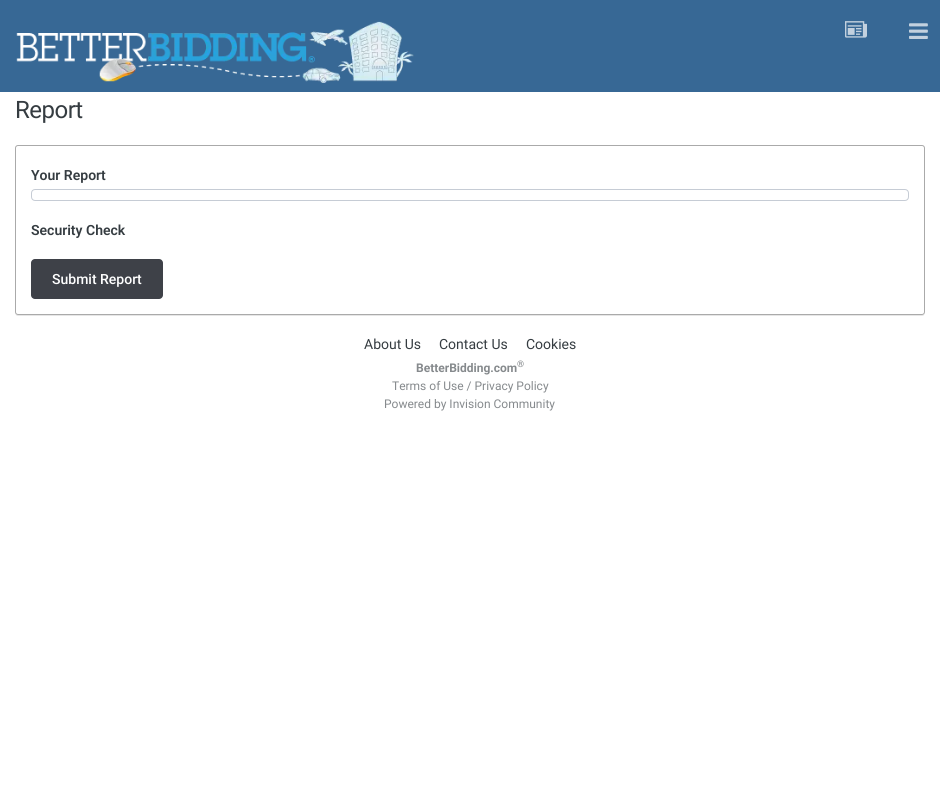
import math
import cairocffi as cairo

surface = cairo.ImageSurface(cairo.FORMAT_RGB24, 940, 796)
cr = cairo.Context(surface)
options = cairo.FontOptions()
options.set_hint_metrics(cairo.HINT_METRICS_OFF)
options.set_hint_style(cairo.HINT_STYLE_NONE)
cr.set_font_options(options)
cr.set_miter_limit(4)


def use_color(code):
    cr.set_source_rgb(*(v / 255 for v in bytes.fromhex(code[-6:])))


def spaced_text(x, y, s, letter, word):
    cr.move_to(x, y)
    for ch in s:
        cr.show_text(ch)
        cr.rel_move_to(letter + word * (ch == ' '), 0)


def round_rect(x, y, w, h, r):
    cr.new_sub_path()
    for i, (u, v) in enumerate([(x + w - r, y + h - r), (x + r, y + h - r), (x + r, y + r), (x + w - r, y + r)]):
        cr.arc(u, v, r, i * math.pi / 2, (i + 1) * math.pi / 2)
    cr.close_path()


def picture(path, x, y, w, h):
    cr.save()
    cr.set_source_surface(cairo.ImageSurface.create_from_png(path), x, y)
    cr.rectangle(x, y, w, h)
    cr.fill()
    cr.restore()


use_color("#ffffff")
cr.paint()
use_color("#376895")
cr.rectangle(0, 0, 940, 92)
cr.fill()
picture("img1.png", 16, 21, 398, 62)
picture("img2.png", 845, 21, 22, 17)
picture("img3.png", 909, 23, 19, 16)
cr.select_font_face("Roboto")
cr.set_font_size(24)
use_color("#353c41")
spaced_text(15, 118, "Report", -0.5, 0)
use_color("#e6e6e6")
cr.new_path()
cr.move_to(15, 312)
cr.curve_to(15, 314, 16, 316, 18, 316)
cr.line_to(922, 316)
cr.curve_to(924, 316, 925, 314, 925, 312)
cr.curve_to(925, 314, 924, 315, 922, 315)
cr.line_to(18, 315)
cr.curve_to(16, 315, 15, 314, 15, 312)
cr.close_path()
cr.fill()
use_color("#ffffff")
round_rect(15.5, 145.5, 909, 169, 2.5)
cr.fill_preserve()
use_color("#aaaaaa")
cr.set_line_width(1)
cr.stroke()
cr.select_font_face("Roboto SemiBold")
cr.set_font_size(14)
use_color("#353c41")
cr.move_to(31, 180)
cr.show_text("Your Report")
round_rect(31.5, 189.5, 877, 11, 3.5)
use_color("#c6ccd5")
cr.stroke()
use_color("#353c41")
cr.move_to(31, 235)
cr.show_text("Security Check")
use_color("#3e4148")
round_rect(31, 259, 132, 40, 4)
cr.fill()
cr.select_font_face("Roboto Medium")
use_color("#ffffff")
cr.move_to(52, 284)
cr.show_text("Submit Report")
cr.select_font_face("Roboto")
use_color("#353c41")
cr.move_to(364, 349)
cr.show_text("About Us")
cr.move_to(439, 349)
cr.show_text("Contact Us")
cr.move_to(526, 349)
cr.show_text("Cookies")
cr.select_font_face("Roboto", cairo.FONT_SLANT_NORMAL, cairo.FONT_WEIGHT_BOLD)
cr.set_font_size(12)
use_color("#868a8d")
cr.move_to(416, 372)
cr.show_text("BetterBidding.com")
cr.set_font_size(9)
cr.move_to(517, 367)
cr.show_text("®")
cr.select_font_face("Roboto")
cr.set_font_size(12)
cr.move_to(392, 390)
cr.show_text("Terms of Use / Privacy Policy")
cr.move_to(384, 408)
cr.show_text("Powered by Invision Community")
surface.write_to_png("result.png")
